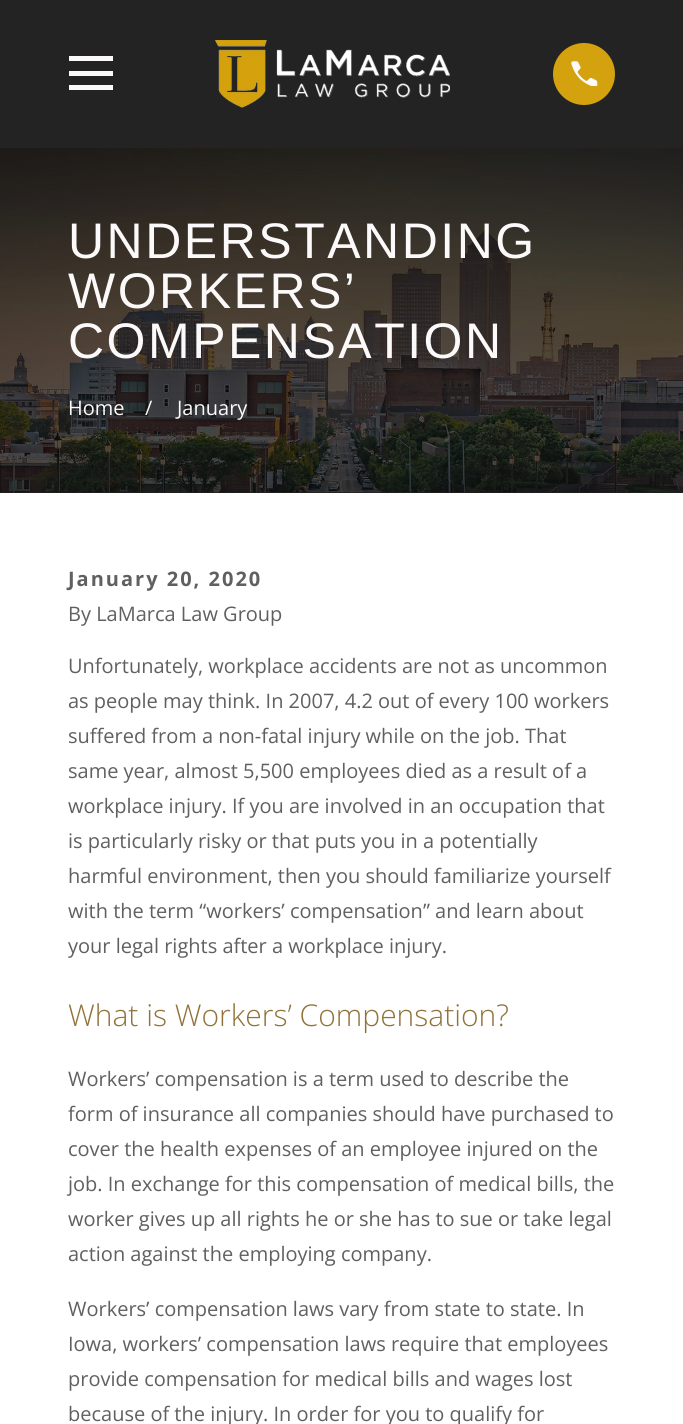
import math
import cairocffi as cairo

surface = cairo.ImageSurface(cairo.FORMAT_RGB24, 683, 1424)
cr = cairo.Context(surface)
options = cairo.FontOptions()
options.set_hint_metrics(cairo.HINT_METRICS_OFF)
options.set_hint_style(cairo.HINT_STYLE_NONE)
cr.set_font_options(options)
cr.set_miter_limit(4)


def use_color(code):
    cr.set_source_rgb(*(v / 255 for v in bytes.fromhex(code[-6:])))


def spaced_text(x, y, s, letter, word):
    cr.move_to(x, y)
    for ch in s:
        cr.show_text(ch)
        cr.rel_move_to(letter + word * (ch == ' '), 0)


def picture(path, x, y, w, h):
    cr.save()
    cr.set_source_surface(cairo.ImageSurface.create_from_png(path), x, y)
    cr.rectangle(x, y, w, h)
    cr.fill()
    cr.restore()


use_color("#ffffff")
cr.paint()
use_color("#232323")
cr.rectangle(0, 0, 683, 148)
cr.fill()
use_color("#fbf9f9")
cr.new_path()
cr.move_to(69, 56)
cr.line_to(69, 61)
cr.line_to(113, 61)
cr.line_to(113, 56)
cr.close_path()
cr.move_to(69, 71)
cr.line_to(69, 76)
cr.line_to(113, 76)
cr.line_to(113, 71)
cr.close_path()
cr.move_to(69, 85)
cr.line_to(69, 90)
cr.line_to(113, 90)
cr.line_to(113, 85)
cr.close_path()
cr.fill()
picture("img1.png", 215, 40, 235, 68)
use_color("#d4a20f")
cr.arc(584, 74, 31, 0, 2 * math.pi)
cr.fill()
picture("img2.png", 571, 61, 27, 25)
use_color("#232323")
cr.rectangle(0, 492, 683, 1)
cr.fill()
picture("img3.png", 0, 148, 683, 345)
gradient = cairo.LinearGradient(342, 493, 342, 148)
gradient.add_color_stop_rgba(0, 0, 0, 0, 0.1)
gradient.add_color_stop_rgba(0.5, 0, 0, 0, 0)
gradient.add_color_stop_rgba(1, 0, 0, 0, 0.1)
cr.set_source(gradient)
cr.rectangle(0, 148, 683, 345)
cr.fill()
cr.select_font_face("Liberation Sans")
cr.set_font_size(50)
use_color("#fbf9f9")
spaced_text(68, 258, "UNDERSTANDING", 2.5, 0)
spaced_text(68, 308, "WORKERS’", 2.5, 0)
spaced_text(68, 358, "COMPENSATION", 2.5, 0)
cr.select_font_face("Open Sans")
cr.set_font_size(20)
cr.move_to(68, 415)
cr.show_text("Home")
cr.move_to(145, 415)
cr.show_text("/")
cr.move_to(177, 415)
cr.show_text("January")
cr.select_font_face("Open Sans", cairo.FONT_SLANT_NORMAL, cairo.FONT_WEIGHT_BOLD)
use_color("#606060")
spaced_text(68, 586, "January 20, 2020", 2, 0)
cr.select_font_face("Open Sans")
cr.move_to(68, 621)
cr.show_text("By LaMarca Law Group")
cr.move_to(68, 673)
cr.show_text("Unfortunately, workplace accidents are not as uncommon")
cr.move_to(68, 708)
cr.show_text("as people may think. In 2007, 4.2 out of every 100 workers")
cr.move_to(68, 743)
cr.show_text("suffered from a non-fatal injury while on the job. That")
cr.move_to(68, 778)
cr.show_text("same year, almost 5,500 employees died as a result of a")
cr.move_to(68, 813)
cr.show_text("workplace injury. If you are involved in an occupation that")
cr.move_to(68, 848)
cr.show_text("is particularly risky or that puts you in a potentially")
cr.move_to(68, 883)
cr.show_text("harmful environment, then you should familiarize yourself")
cr.move_to(68, 918)
cr.show_text("with the term “workers’ compensation” and learn about")
cr.move_to(68, 953)
cr.show_text("your legal rights after a workplace injury.")
cr.select_font_face("Open Sans Light")
cr.set_font_size(30)
use_color("#91733a")
cr.move_to(68, 1026)
cr.show_text("What is Workers’ Compensation?")
cr.select_font_face("Open Sans")
cr.set_font_size(20)
use_color("#606060")
cr.move_to(68, 1086)
cr.show_text("Workers’ compensation is a term used to describe the")
cr.move_to(68, 1121)
cr.show_text("form of insurance all companies should have purchased to")
cr.move_to(68, 1156)
cr.show_text("cover the health expenses of an employee injured on the")
cr.move_to(68, 1191)
cr.show_text("job. In exchange for this compensation of medical bills, the")
cr.move_to(68, 1226)
cr.show_text("worker gives up all rights he or she has to sue or take legal")
cr.move_to(68, 1261)
cr.show_text("action against the employing company.")
cr.move_to(68, 1316)
cr.show_text("Workers’ compensation laws vary from state to state. In")
cr.move_to(68, 1351)
cr.show_text("Iowa, workers’ compensation laws require that employees")
cr.move_to(68, 1386)
cr.show_text("provide compensation for medical bills and wages lost")
cr.move_to(68, 1421)
cr.show_text("because of the injury. In order for you to qualify for")
surface.write_to_png("result.png")
